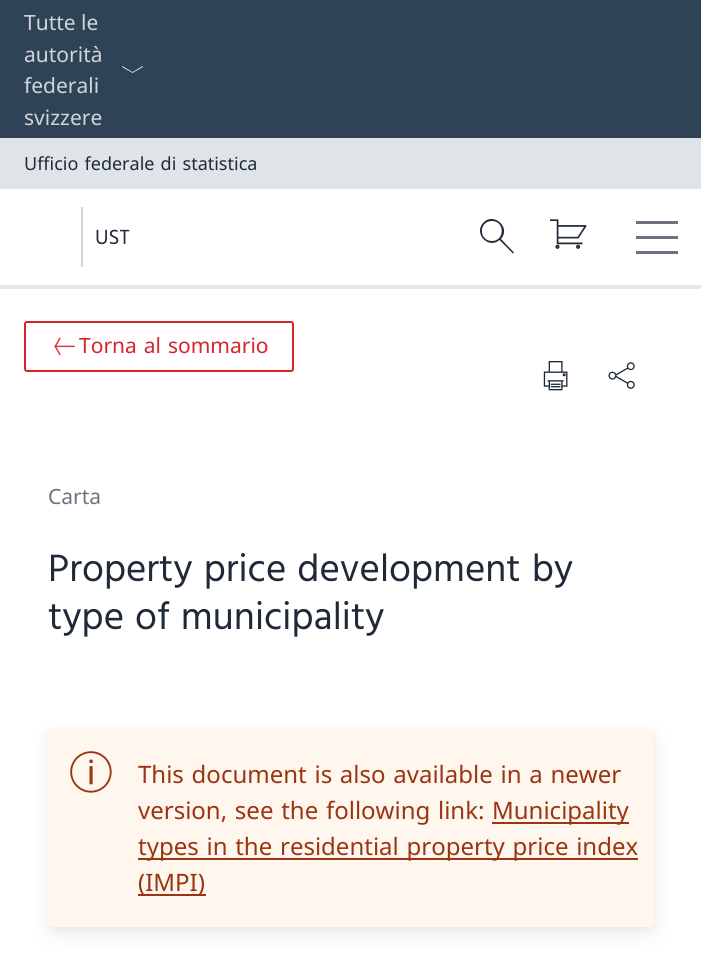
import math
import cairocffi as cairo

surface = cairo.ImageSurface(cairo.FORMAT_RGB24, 701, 953)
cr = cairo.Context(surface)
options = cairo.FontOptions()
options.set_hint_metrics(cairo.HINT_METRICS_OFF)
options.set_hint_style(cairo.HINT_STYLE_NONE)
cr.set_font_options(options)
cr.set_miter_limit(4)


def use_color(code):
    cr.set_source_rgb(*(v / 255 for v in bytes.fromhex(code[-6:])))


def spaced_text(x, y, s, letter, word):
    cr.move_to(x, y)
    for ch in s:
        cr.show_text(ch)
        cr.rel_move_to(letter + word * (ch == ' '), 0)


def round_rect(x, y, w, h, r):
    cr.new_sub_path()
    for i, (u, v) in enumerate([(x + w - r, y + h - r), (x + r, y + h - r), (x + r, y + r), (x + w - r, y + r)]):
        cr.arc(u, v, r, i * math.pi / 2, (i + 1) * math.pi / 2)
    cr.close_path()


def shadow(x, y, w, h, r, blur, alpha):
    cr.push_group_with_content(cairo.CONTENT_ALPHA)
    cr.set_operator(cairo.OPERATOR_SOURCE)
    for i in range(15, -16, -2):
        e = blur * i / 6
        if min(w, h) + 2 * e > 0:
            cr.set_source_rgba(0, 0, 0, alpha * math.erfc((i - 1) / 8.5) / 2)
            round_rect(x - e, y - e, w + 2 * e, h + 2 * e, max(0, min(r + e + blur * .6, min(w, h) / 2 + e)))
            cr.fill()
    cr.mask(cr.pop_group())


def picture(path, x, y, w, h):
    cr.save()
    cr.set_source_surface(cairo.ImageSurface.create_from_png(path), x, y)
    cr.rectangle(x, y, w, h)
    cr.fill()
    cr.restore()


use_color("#ffffff")
cr.paint()
use_color("#2f4356")
cr.rectangle(0, 0, 701, 138)
cr.fill()
cr.select_font_face("Noto Sans")
cr.set_font_size(21)
use_color("#d1d5db")
cr.move_to(24, 30)
cr.show_text("Tutte le")
cr.move_to(24, 62)
cr.show_text("autorità")
cr.move_to(24, 93)
cr.show_text("federali")
cr.move_to(24, 125)
cr.show_text("svizzere")
cr.new_path()
cr.move_to(122.5, 66)
cr.line_to(132.5, 72)
cr.line_to(142.5, 66)
cr.line_to(143, 67)
cr.line_to(132.5, 73)
cr.line_to(122, 67)
cr.close_path()
cr.fill()
use_color("#e5e7eb")
cr.rectangle(0, 285, 701, 4)
cr.fill()
use_color("#dfe4e9")
cr.rectangle(0, 138, 701, 51)
cr.fill()
cr.set_font_size(18)
use_color("#1f2937")
spaced_text(24, 170, "Ufficio federale di statistica", 0, 1.5)
use_color("#d1d5db")
cr.rectangle(81, 207, 2, 60)
cr.fill()
cr.select_font_face("Hind")
cr.set_font_size(21)
use_color("#1f2937")
cr.move_to(95, 244)
cr.show_text("UST")
cr.new_path()
cr.move_to(501, 239)
cr.curve_to(511.5, 227, 493, 211.5, 483, 223)
cr.curve_to(473.5, 234, 488.5, 249.5, 499.5, 240)
cr.line_to(513, 253.5)
cr.line_to(514, 252.5)
cr.close_path()
cr.move_to(492, 241)
cr.curve_to(478.5, 241, 478.5, 221, 492, 221)
cr.curve_to(505, 221, 505, 241, 492, 241)
cr.fill()
picture("img1.png", 550, 219, 37, 30)
use_color("#6b7280")
cr.rectangle(636, 221, 42, 3)
cr.fill()
cr.rectangle(636, 236, 42, 3)
cr.fill()
cr.rectangle(636, 251, 42, 3)
cr.fill()
round_rect(25, 322, 268, 49, 2)
use_color("#d8232a")
cr.stroke()
picture("img2.png", 54, 337, 21, 19)
cr.select_font_face("Noto Sans")
spaced_text(79, 353, "Torna al sommario", 0, 1.5)
picture("img3.png", 543, 361, 25, 30)
picture("img4.png", 608, 362, 27, 27)
use_color("#6b7280")
cr.move_to(48, 504)
cr.show_text("Carta")
cr.select_font_face("Hind")
cr.set_font_size(39)
use_color("#1f2937")
spaced_text(48, 581, "Property price development by", 0, 1.5)
spaced_text(48, 629, "type of municipality", 0, 1.5)
use_color("#000000")
shadow(53, 741, 597, 189, 0, 15, 0.08)
shadow(50, 734, 603, 195, 3, 4.5, 0.06)
use_color("#fff7ed")
round_rect(48, 729, 606, 198, 5)
cr.fill()
picture("img5.png", 70, 751, 42, 42)
cr.select_font_face("Noto Sans")
cr.set_font_size(24)
use_color("#9a3412")
spaced_text(138, 783, "This document is also available in a newer", 0, 1.5)
spaced_text(138, 819, "version, see the following link:", 0, 1.5)
cr.rectangle(492, 822, 137, 2)
cr.fill()
cr.move_to(492, 819)
cr.show_text("Municipality")
cr.rectangle(138, 858, 500, 2)
cr.fill()
spaced_text(138, 855, "types in the residential property price index", 0, 1.5)
cr.rectangle(138, 894, 68, 2)
cr.fill()
cr.move_to(138, 891)
cr.show_text("(IMPI)")
surface.write_to_png("result.png")
